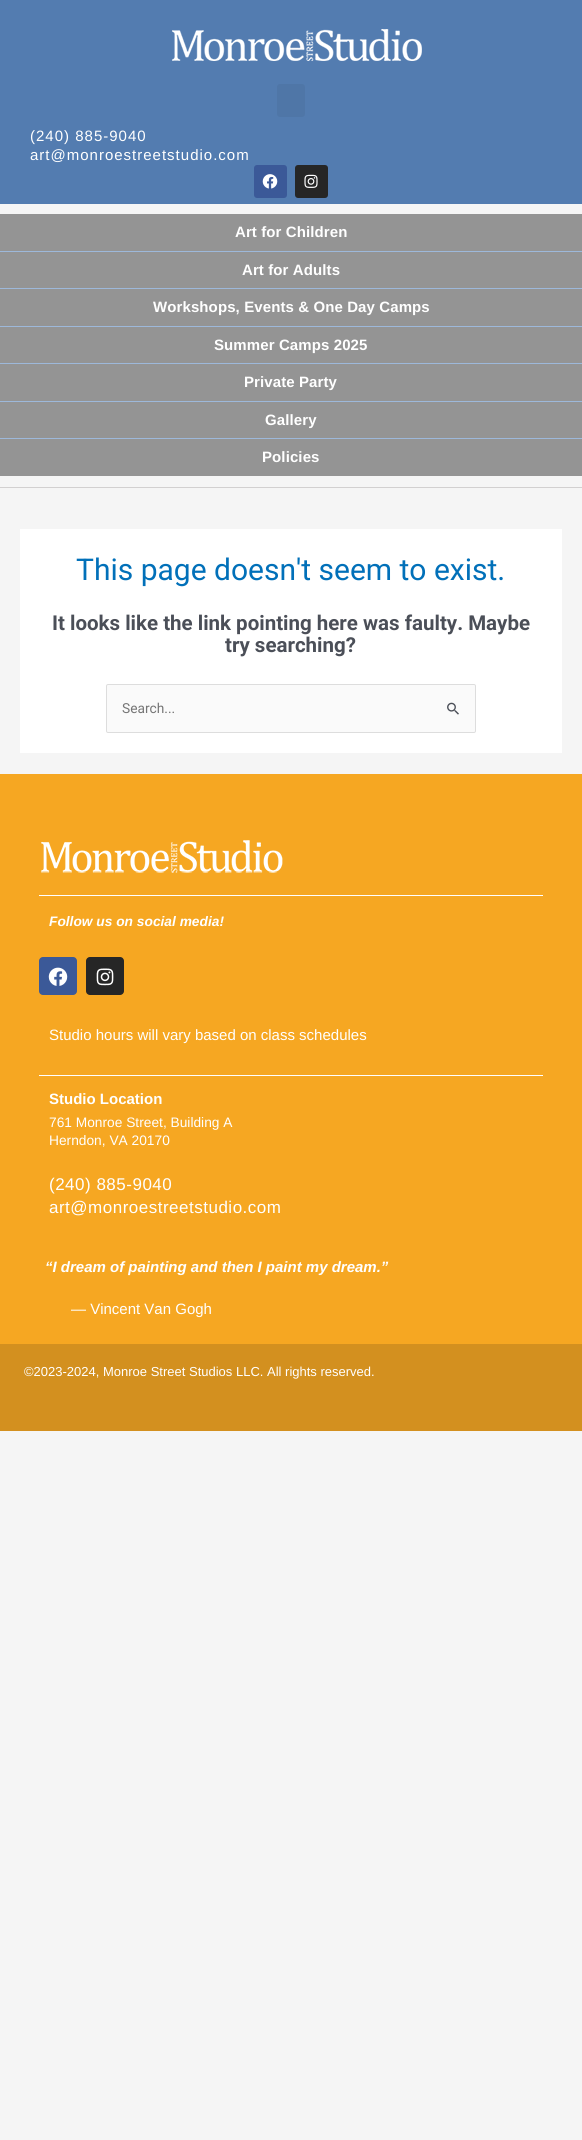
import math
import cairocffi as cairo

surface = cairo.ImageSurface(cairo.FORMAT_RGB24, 582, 2140)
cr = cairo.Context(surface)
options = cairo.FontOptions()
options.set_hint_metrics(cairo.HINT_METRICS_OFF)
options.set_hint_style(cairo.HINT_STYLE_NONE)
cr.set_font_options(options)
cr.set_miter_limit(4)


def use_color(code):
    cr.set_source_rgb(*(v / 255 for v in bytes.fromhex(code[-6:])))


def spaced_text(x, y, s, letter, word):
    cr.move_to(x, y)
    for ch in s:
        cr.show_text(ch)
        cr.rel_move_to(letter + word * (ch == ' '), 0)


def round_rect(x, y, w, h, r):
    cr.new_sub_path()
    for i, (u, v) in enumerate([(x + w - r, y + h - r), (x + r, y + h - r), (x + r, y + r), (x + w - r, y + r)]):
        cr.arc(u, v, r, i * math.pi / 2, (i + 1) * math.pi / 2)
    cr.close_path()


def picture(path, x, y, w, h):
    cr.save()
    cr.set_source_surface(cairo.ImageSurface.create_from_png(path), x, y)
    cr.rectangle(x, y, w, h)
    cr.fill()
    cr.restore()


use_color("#f5f5f5")
cr.paint()
use_color("#537cb0")
cr.rectangle(0, 0, 582, 204)
cr.fill()
picture("img1.png", 172, 29, 250, 32)
use_color("#4f76a7")
round_rect(277, 84, 28, 33, 3)
cr.fill()
cr.select_font_face("Liberation Sans")
cr.set_font_size(15)
use_color("#ffffff")
spaced_text(30, 141, "(240) 885-9040", 1, 0)
spaced_text(30, 160, "art@monroestreetstudio.com", 1, 0)
use_color("#3b5998")
round_rect(254, 165, 33, 33, 3)
cr.fill()
picture("img2.png", 262, 174, 16, 15)
use_color("#262626")
round_rect(295, 165, 33, 33, 3)
cr.fill()
picture("img3.png", 304, 174, 14, 14)
use_color("#d2d0d0")
cr.rectangle(0, 487, 582, 1)
cr.fill()
use_color("#949494")
cr.rectangle(0, 214, 582, 262)
cr.fill()
use_color("#9db8da")
cr.rectangle(0, 251, 582, 1)
cr.fill()
cr.select_font_face("Liberation Sans", cairo.FONT_SLANT_NORMAL, cairo.FONT_WEIGHT_BOLD)
use_color("#ffffff")
spaced_text(235, 237, "Art for Children", 0.1, 0)
use_color("#9db8da")
cr.rectangle(0, 288, 582, 1)
cr.fill()
use_color("#ffffff")
spaced_text(242, 275, "Art for Adults", 0.1, 0)
use_color("#9db8da")
cr.rectangle(0, 326, 582, 1)
cr.fill()
use_color("#ffffff")
spaced_text(153, 312, "Workshops, Events & One Day Camps", 0.1, 0)
use_color("#9db8da")
cr.rectangle(0, 363, 582, 1)
cr.fill()
use_color("#ffffff")
spaced_text(214, 350, "Summer Camps 2025", 0.1, 0)
use_color("#9db8da")
cr.rectangle(0, 401, 582, 1)
cr.fill()
use_color("#ffffff")
spaced_text(244, 387, "Private Party", 0.1, 0)
use_color("#9db8da")
cr.rectangle(0, 438, 582, 1)
cr.fill()
use_color("#ffffff")
spaced_text(265, 425, "Gallery", 0.1, 0)
spaced_text(262, 462, "Policies", 0.1, 0)
cr.rectangle(20, 529, 542, 224)
cr.fill()
cr.select_font_face("Roboto")
cr.set_font_size(30)
use_color("#0170b9")
cr.move_to(76, 580)
cr.show_text("This page doesn't seem to exist.")
cr.select_font_face("Roboto", cairo.FONT_SLANT_NORMAL, cairo.FONT_WEIGHT_BOLD)
cr.set_font_size(20.5)
use_color("#4b4f58")
cr.move_to(52, 630)
cr.show_text("It looks like the link pointing here was faulty. Maybe")
cr.move_to(225, 652)
cr.show_text("try searching?")
use_color("#fafafa")
round_rect(106.5, 684.5, 369, 48, 1.5)
cr.fill_preserve()
use_color("#dddddd")
cr.set_line_width(1)
cr.stroke()
cr.select_font_face("Roboto")
cr.set_font_size(13.75)
use_color("#757575")
cr.move_to(122, 713)
cr.show_text("Search...")
picture("img4.png", 447, 702, 12, 13)
use_color("#f6a722")
cr.rectangle(0, 774, 582, 570)
cr.fill()
picture("img5.png", 41, 840, 242, 33)
use_color("#ffffff")
cr.rectangle(39, 895, 504, 1)
cr.fill()
cr.select_font_face("Liberation Sans", cairo.FONT_SLANT_ITALIC, cairo.FONT_WEIGHT_BOLD)
cr.move_to(49, 926)
cr.show_text("Follow us on social media!")
use_color("#3b5998")
round_rect(39, 957, 38, 38, 4)
cr.fill()
picture("img6.png", 48, 967, 20, 19)
use_color("#262626")
round_rect(86, 957, 38, 38, 4)
cr.fill()
picture("img7.png", 96, 968, 18, 18)
cr.select_font_face("Liberation Sans")
cr.set_font_size(15)
use_color("#ffffff")
cr.move_to(49, 1040)
cr.show_text("Studio hours will vary based on class schedules")
cr.rectangle(39, 1075, 504, 1)
cr.fill()
cr.select_font_face("Liberation Sans", cairo.FONT_SLANT_NORMAL, cairo.FONT_WEIGHT_BOLD)
cr.move_to(49, 1104)
cr.show_text("Studio Location")
cr.select_font_face("Liberation Sans")
cr.set_font_size(13.75)
cr.move_to(49, 1127)
cr.show_text("761 Monroe Street, Building A")
cr.move_to(49, 1145)
cr.show_text("Herndon, VA 20170")
cr.set_font_size(17)
spaced_text(49, 1190, "(240) 885-9040", 0.5, 0)
spaced_text(49, 1213, "art@monroestreetstudio.com", 0.5, 0)
cr.select_font_face("Liberation Sans", cairo.FONT_SLANT_ITALIC, cairo.FONT_WEIGHT_BOLD)
cr.set_font_size(15)
cr.move_to(45, 1272)
cr.show_text("“I dream of painting and then I paint my dream.”")
cr.select_font_face("Liberation Sans")
cr.move_to(71, 1314)
cr.show_text("— Vincent Van Gogh")
use_color("#d3901f")
cr.rectangle(0, 1344, 582, 87)
cr.fill()
cr.set_font_size(13)
use_color("#ffffff")
cr.move_to(24, 1376)
cr.show_text("©2023-2024, Monroe Street Studios LLC. All rights reserved.")
surface.write_to_png("result.png")
